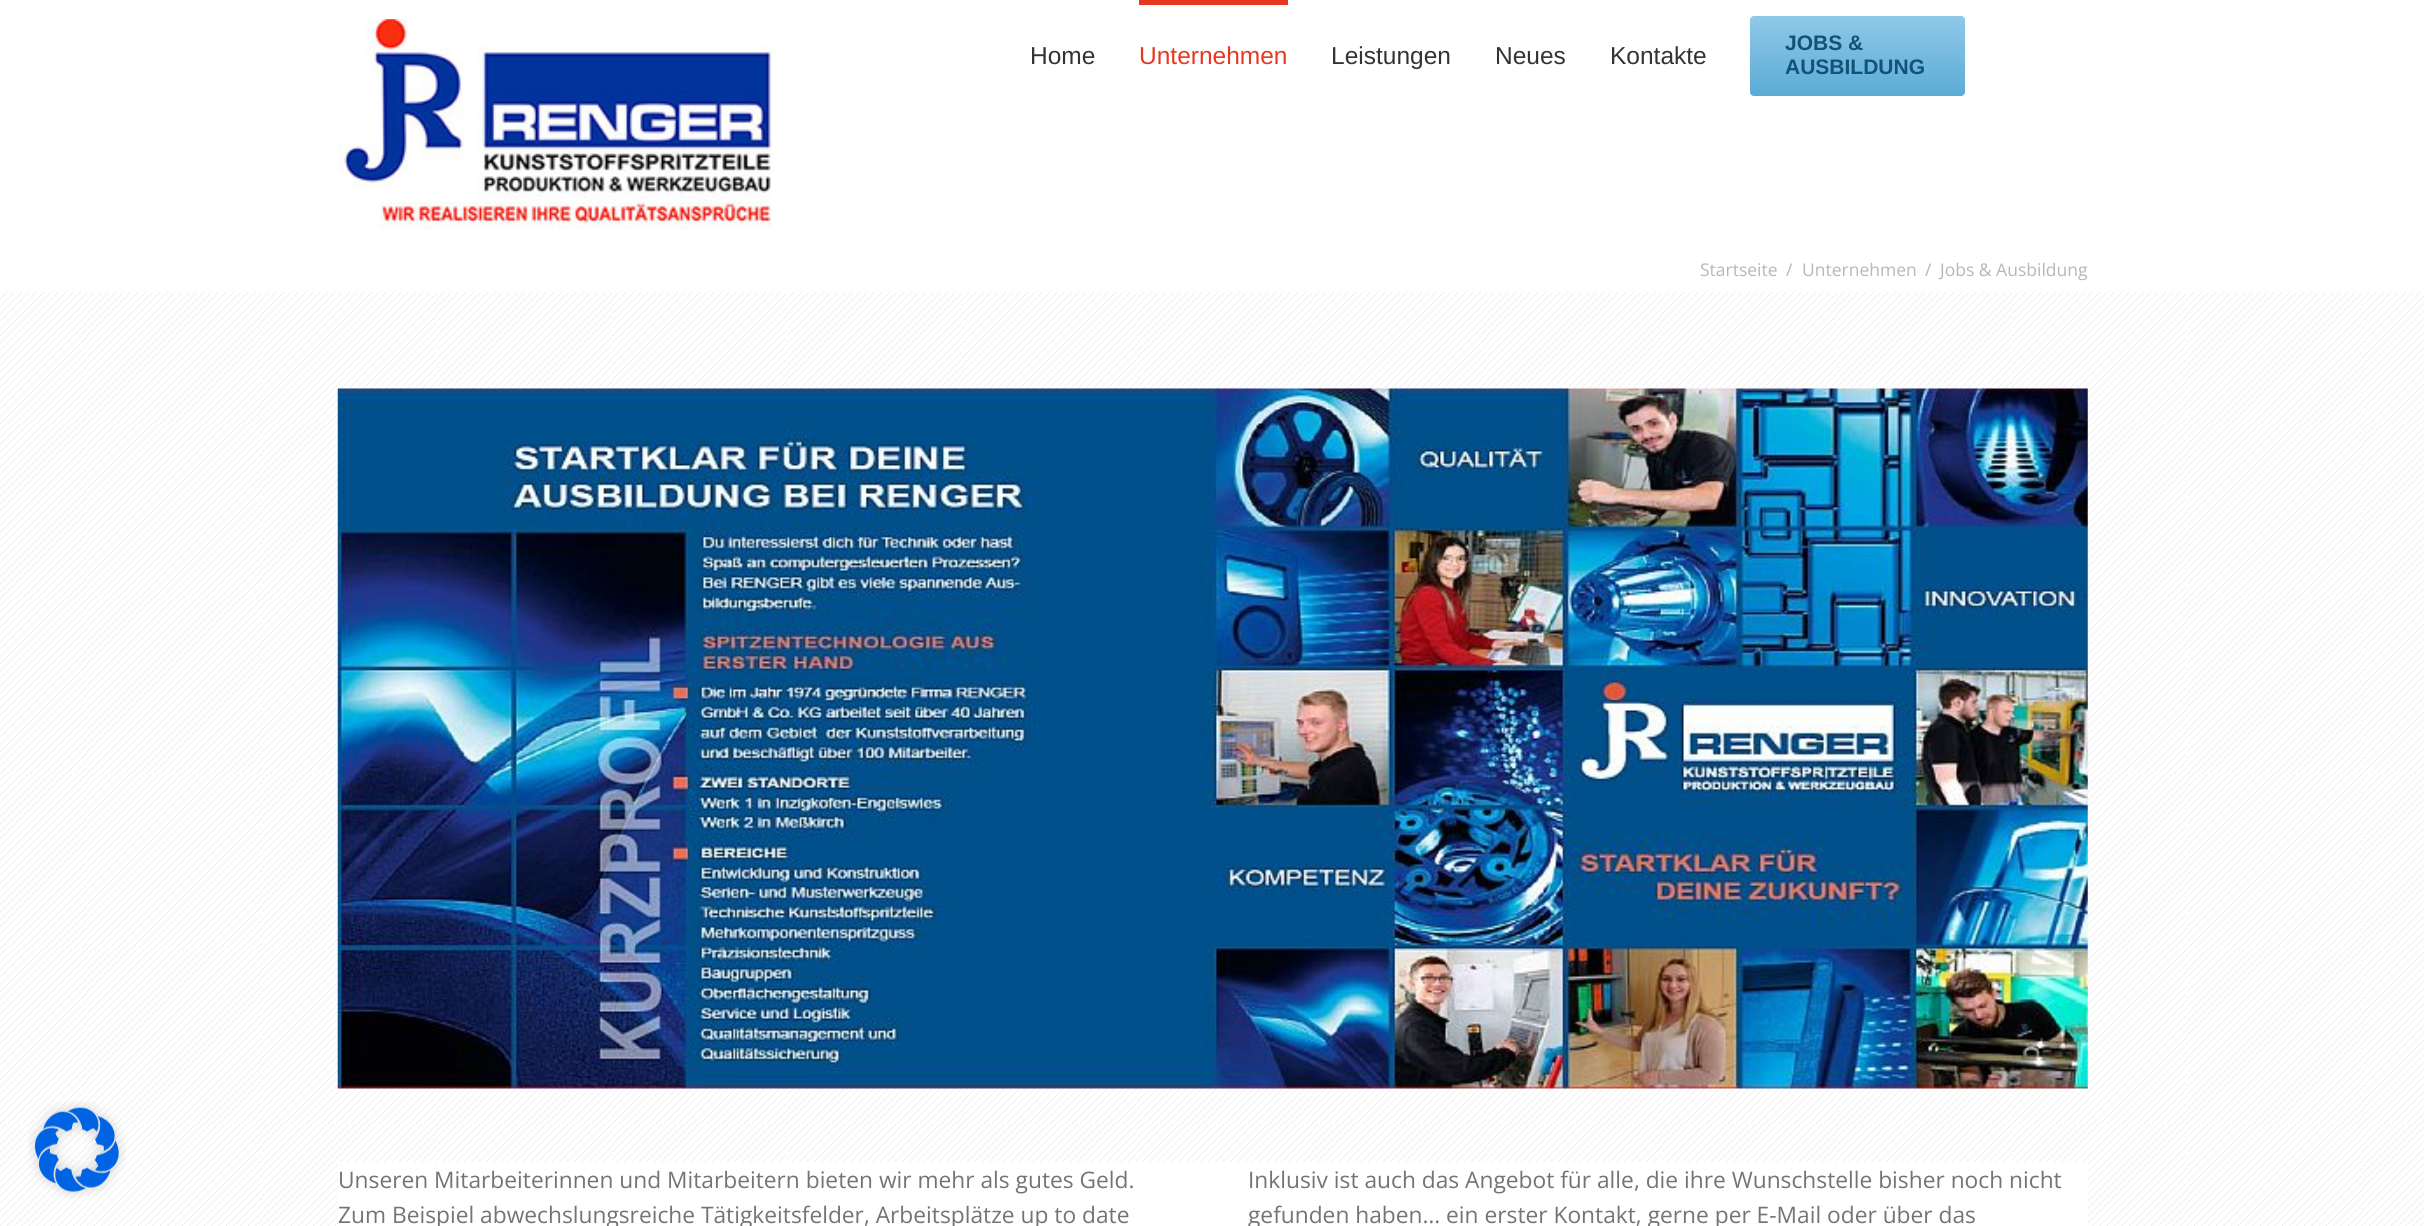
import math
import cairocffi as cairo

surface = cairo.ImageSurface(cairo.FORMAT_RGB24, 2424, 1226)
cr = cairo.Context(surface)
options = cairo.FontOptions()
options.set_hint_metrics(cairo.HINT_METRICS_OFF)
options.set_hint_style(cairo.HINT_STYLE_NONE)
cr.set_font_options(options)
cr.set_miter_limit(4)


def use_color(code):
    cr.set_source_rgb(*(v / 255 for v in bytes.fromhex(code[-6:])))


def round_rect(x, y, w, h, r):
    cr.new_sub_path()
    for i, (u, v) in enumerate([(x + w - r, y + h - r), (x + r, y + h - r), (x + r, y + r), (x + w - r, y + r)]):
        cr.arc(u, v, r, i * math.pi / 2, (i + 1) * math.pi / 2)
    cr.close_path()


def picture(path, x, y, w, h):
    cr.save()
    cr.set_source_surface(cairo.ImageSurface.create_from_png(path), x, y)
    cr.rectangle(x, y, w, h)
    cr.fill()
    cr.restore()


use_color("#ffffff")
cr.paint()
picture("img3.png", 0, 292, 2424, 934)
picture("img1.png", 28, 1101, 98, 97)
picture("img2.png", 337, 19, 435, 211)
cr.select_font_face("Liberation Sans")
cr.set_font_size(24.5)
use_color("#333333")
cr.move_to(1030, 64)
cr.show_text("Home")
use_color("#e73720")
cr.rectangle(1139, 0, 149, 5)
cr.fill()
cr.move_to(1139, 64)
cr.show_text("Unternehmen")
use_color("#333333")
cr.move_to(1331, 64)
cr.show_text("Leistungen")
cr.move_to(1495, 64)
cr.show_text("Neues")
cr.move_to(1610, 64)
cr.show_text("Kontakte")
gradient = cairo.LinearGradient(1858, 16, 1858, 96)
gradient.add_color_stop_rgba(0, 0.565, 0.788, 0.91, 1)
gradient.add_color_stop_rgba(1, 0.353, 0.671, 0.839, 1)
cr.set_source(gradient)
round_rect(1750, 16, 215, 80, 4)
cr.fill()
cr.select_font_face("Liberation Sans", cairo.FONT_SLANT_NORMAL, cairo.FONT_WEIGHT_BOLD)
cr.set_font_size(21)
use_color("#105378")
cr.move_to(1785, 50)
cr.show_text("JOBS &")
cr.move_to(1785, 74)
cr.show_text("AUSBILDUNG")
cr.select_font_face("Open Sans")
cr.set_font_size(17.5)
use_color("#b7b7b7")
cr.move_to(1700, 276)
cr.show_text("Startseite")
cr.move_to(1786, 276)
cr.show_text("/")
cr.move_to(1802, 276)
cr.show_text("Unternehmen")
cr.move_to(1925, 276)
cr.show_text("/")
cr.move_to(1940, 276)
cr.show_text("Jobs & Ausbildung")
use_color("#ffffff")
cr.rectangle(338, 389, 1750, 700)
cr.fill()
picture("img4.png", 337, 388, 1751, 701)
cr.rectangle(338, 1162, 1750, 64)
cr.fill()
cr.set_font_size(22.75)
use_color("#747474")
cr.move_to(338, 1188)
cr.show_text("Unseren Mitarbeiterinnen und Mitarbeitern bieten wir mehr als gutes Geld.")
cr.move_to(338, 1223)
cr.show_text("Zum Beispiel abwechslungsreiche Tätigkeitsfelder, Arbeitsplätze up to date")
cr.move_to(1248, 1188)
cr.show_text("Inklusiv ist auch das Angebot für alle, die ihre Wunschstelle bisher noch nicht")
cr.move_to(1248, 1223)
cr.show_text("gefunden haben… ein erster Kontakt, gerne per E-Mail oder über das")
surface.write_to_png("result.png")
